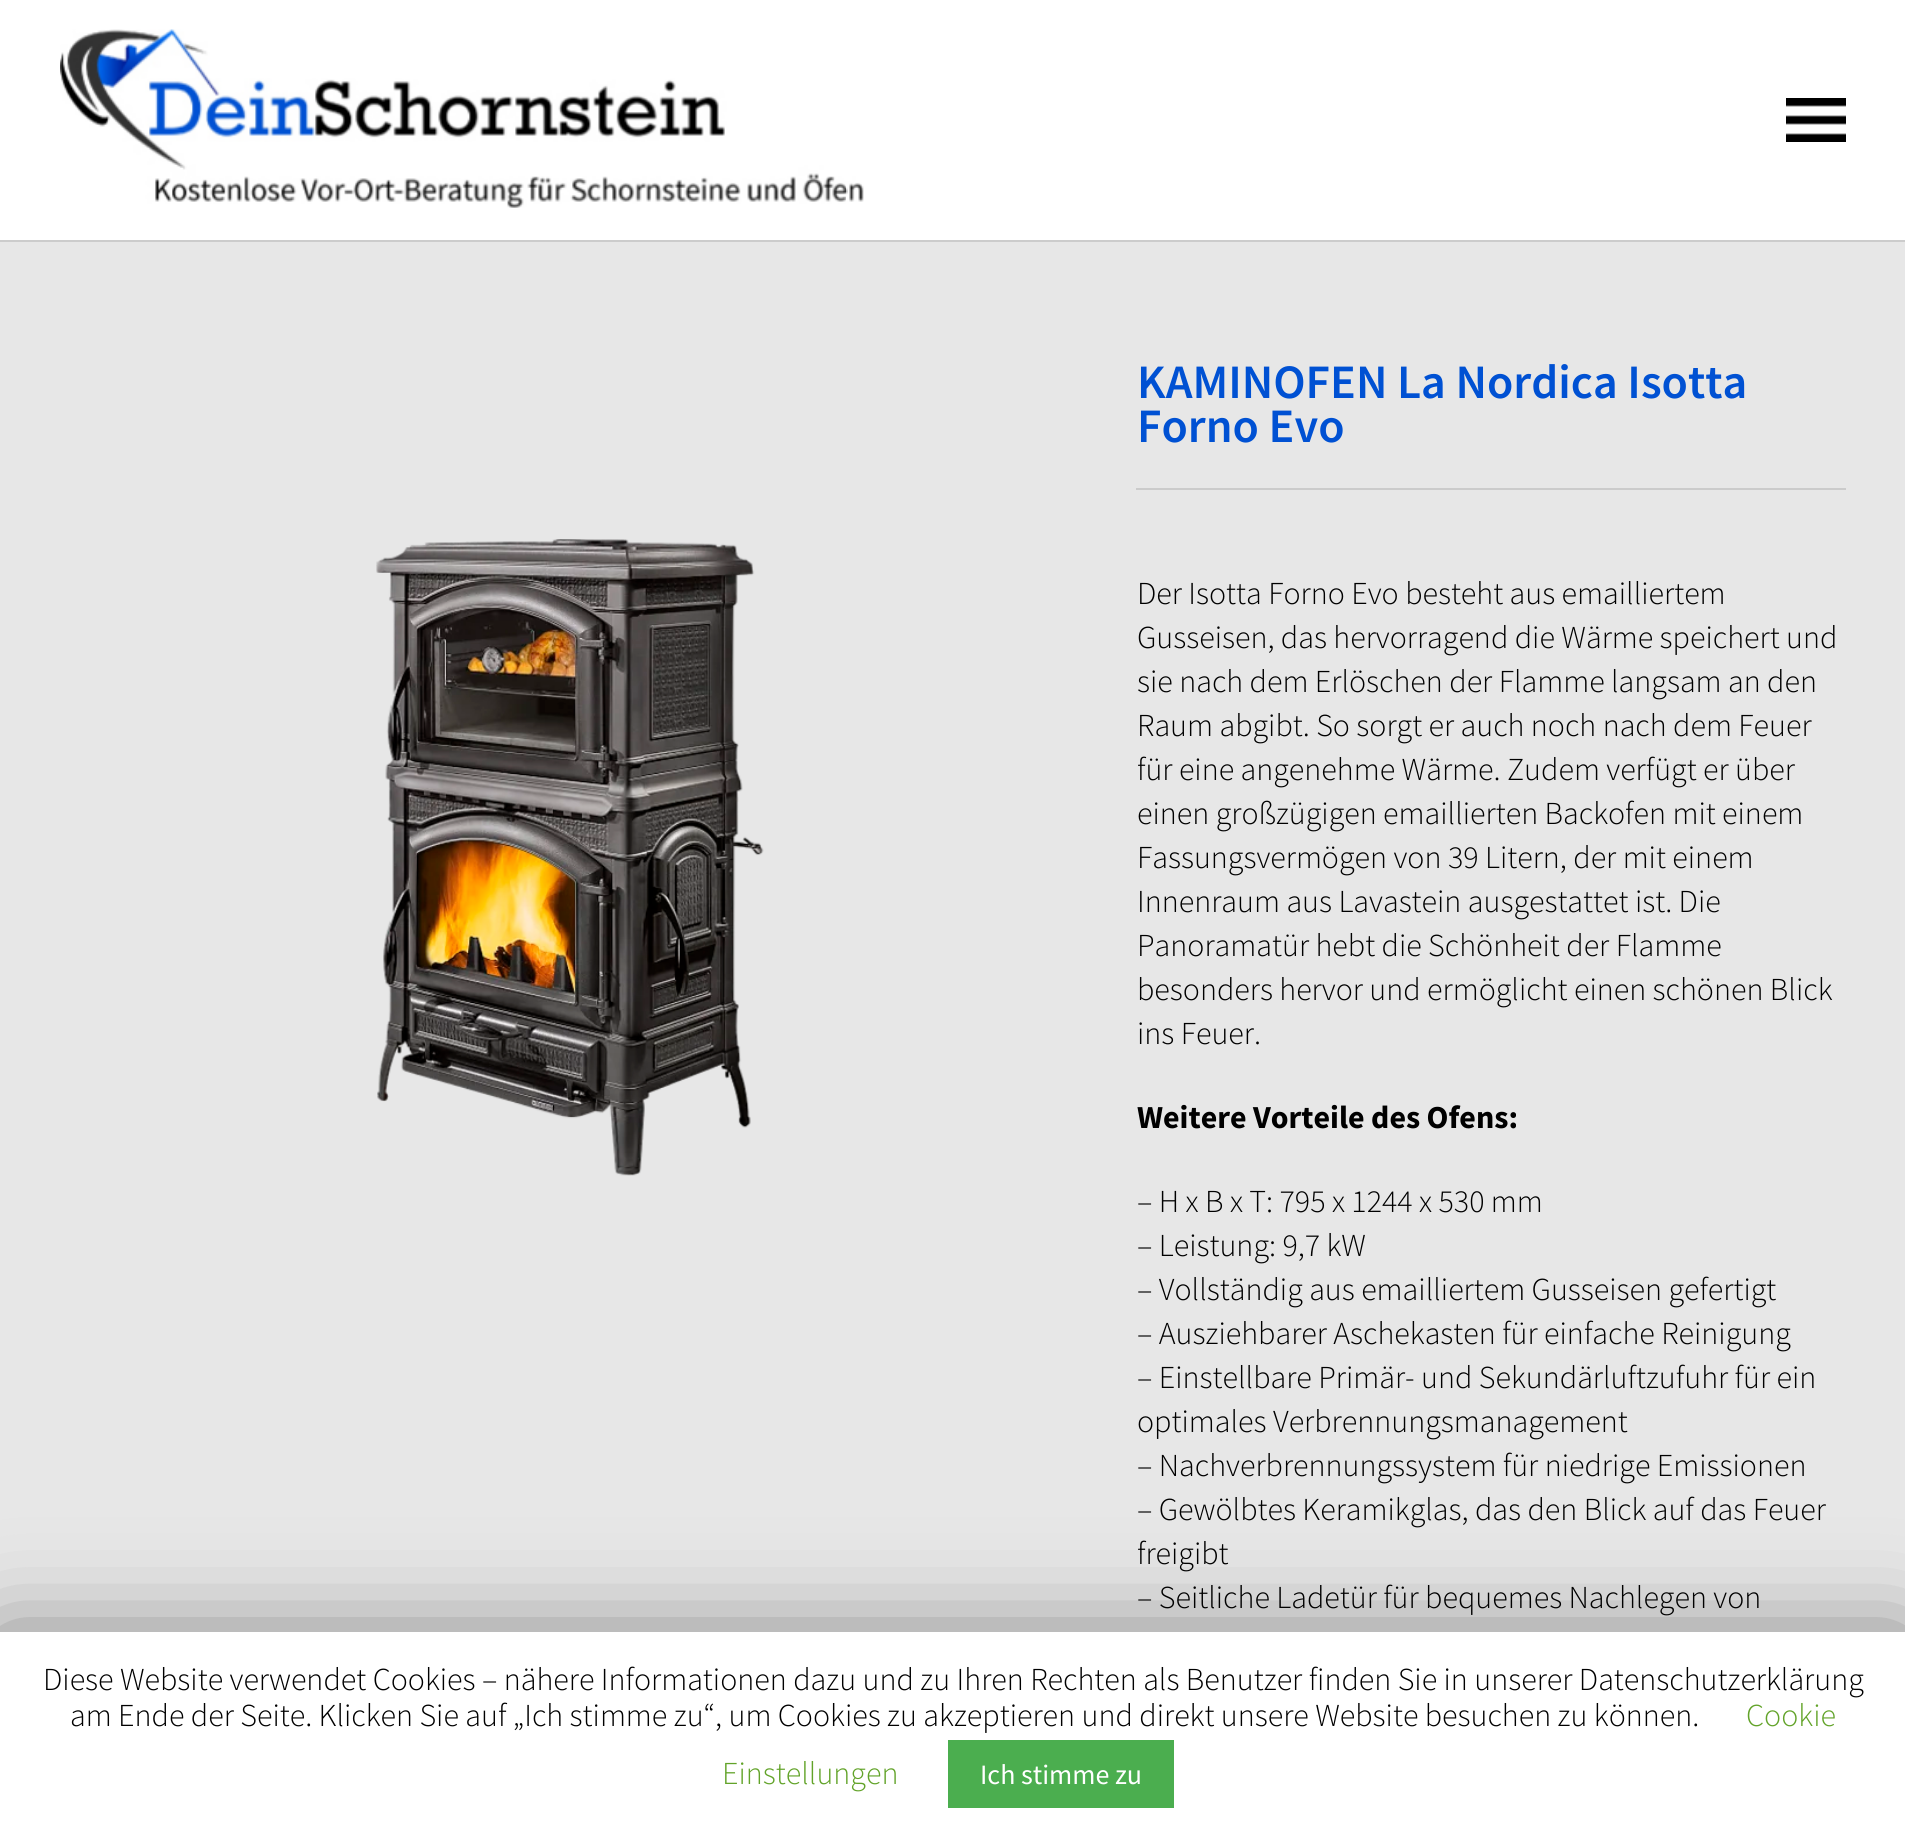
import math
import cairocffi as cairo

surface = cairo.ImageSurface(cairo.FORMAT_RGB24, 1905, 1844)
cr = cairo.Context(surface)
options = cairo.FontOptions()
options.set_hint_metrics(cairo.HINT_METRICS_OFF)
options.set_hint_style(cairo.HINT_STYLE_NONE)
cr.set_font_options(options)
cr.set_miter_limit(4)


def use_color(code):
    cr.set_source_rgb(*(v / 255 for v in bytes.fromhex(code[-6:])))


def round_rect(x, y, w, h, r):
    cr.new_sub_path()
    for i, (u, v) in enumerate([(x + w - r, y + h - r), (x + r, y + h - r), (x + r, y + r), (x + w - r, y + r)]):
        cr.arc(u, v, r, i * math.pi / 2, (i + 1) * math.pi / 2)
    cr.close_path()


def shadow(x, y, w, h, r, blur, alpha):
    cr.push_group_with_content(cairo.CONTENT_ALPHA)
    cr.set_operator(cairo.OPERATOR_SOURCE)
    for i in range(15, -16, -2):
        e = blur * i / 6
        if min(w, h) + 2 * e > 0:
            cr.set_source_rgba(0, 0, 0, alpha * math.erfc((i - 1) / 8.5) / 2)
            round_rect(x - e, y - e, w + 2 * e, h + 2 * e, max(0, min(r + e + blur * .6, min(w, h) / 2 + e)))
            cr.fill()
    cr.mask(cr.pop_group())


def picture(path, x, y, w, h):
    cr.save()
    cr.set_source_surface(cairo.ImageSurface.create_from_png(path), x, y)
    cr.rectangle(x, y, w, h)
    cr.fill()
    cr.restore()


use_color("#e7e7e7")
cr.paint()
use_color("#ffffff")
cr.rectangle(0, 0, 1905, 240)
cr.fill()
use_color("#cccccc")
cr.rectangle(0, 240, 1905, 2)
cr.fill()
picture("img1.png", 60, 29, 804, 179)
picture("img2.png", 1786, 98, 60, 44)
picture("img3.png", 376, 539, 388, 637)
cr.select_font_face("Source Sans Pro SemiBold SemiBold")
cr.set_font_size(48)
use_color("#0051d3")
cr.move_to(1137, 398)
cr.show_text("KAMINOFEN La Nordica Isotta")
cr.move_to(1137, 442)
cr.show_text("Forno Evo")
use_color("#cbcbcb")
cr.rectangle(1136, 488, 710, 2)
cr.fill()
cr.select_font_face("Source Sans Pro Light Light")
cr.set_font_size(32)
use_color("#000000")
cr.move_to(1137, 604)
cr.show_text("Der Isotta Forno Evo besteht aus emailliertem")
cr.move_to(1137, 648)
cr.show_text("Gusseisen, das hervorragend die Wärme speichert und")
cr.move_to(1137, 692)
cr.show_text("sie nach dem Erlöschen der Flamme langsam an den")
cr.move_to(1137, 736)
cr.show_text("Raum abgibt. So sorgt er auch noch nach dem Feuer")
cr.move_to(1137, 780)
cr.show_text("für eine angenehme Wärme. Zudem verfügt er über")
cr.move_to(1137, 824)
cr.show_text("einen großzügigen emaillierten Backofen mit einem")
cr.move_to(1137, 868)
cr.show_text("Fassungsvermögen von 39 Litern, der mit einem")
cr.move_to(1137, 912)
cr.show_text("Innenraum aus Lavastein ausgestattet ist. Die")
cr.move_to(1137, 956)
cr.show_text("Panoramatür hebt die Schönheit der Flamme")
cr.move_to(1137, 1000)
cr.show_text("besonders hervor und ermöglicht einen schönen Blick")
cr.move_to(1137, 1044)
cr.show_text("ins Feuer.")
cr.select_font_face("Source Sans Pro", cairo.FONT_SLANT_NORMAL, cairo.FONT_WEIGHT_BOLD)
cr.move_to(1137, 1128)
cr.show_text("Weitere Vorteile des Ofens:")
cr.select_font_face("Source Sans Pro Light Light")
cr.move_to(1137, 1212)
cr.show_text("– H x B x T: 795 x 1244 x 530 mm")
cr.move_to(1137, 1256)
cr.show_text("– Leistung: 9,7 kW")
cr.move_to(1137, 1300)
cr.show_text("– Vollständig aus emailliertem Gusseisen gefertigt")
cr.move_to(1137, 1344)
cr.show_text("– Ausziehbarer Aschekasten für einfache Reinigung")
cr.move_to(1137, 1388)
cr.show_text("– Einstellbare Primär- und Sekundärluftzufuhr für ein")
cr.move_to(1137, 1432)
cr.show_text("optimales Verbrennungsmanagement")
cr.move_to(1137, 1476)
cr.show_text("– Nachverbrennungssystem für niedrige Emissionen")
cr.move_to(1137, 1520)
cr.show_text("– Gewölbtes Keramikglas, das den Blick auf das Feuer")
cr.move_to(1137, 1564)
cr.show_text("freigibt")
cr.move_to(1137, 1608)
cr.show_text("– Seitliche Ladetür für bequemes Nachlegen von")
use_color("#000000")
shadow(0, 1642, 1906, 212, 0, 50, 0.5)
use_color("#ffffff")
cr.rectangle(0, 1632, 1905, 212)
cr.fill()
use_color("#000000")
cr.move_to(43, 1690)
cr.show_text("Diese Website verwendet Cookies – nähere Informationen dazu und zu Ihren Rechten als Benutzer finden Sie in unserer Datenschutzerklärung")
cr.move_to(70, 1726)
cr.show_text("am Ende der Seite. Klicken Sie auf „Ich stimme zu“, um Cookies zu akzeptieren und direkt unsere Website besuchen zu können.")
use_color("#62a329")
cr.move_to(1746, 1726)
cr.show_text("Cookie")
cr.move_to(722, 1784)
cr.show_text("Einstellungen")
use_color("#4bae4f")
cr.rectangle(948, 1740, 226, 68)
cr.fill()
cr.select_font_face("Source Sans Pro")
cr.set_font_size(28)
use_color("#ffffff")
cr.move_to(980, 1784)
cr.show_text("Ich stimme zu")
surface.write_to_png("result.png")
